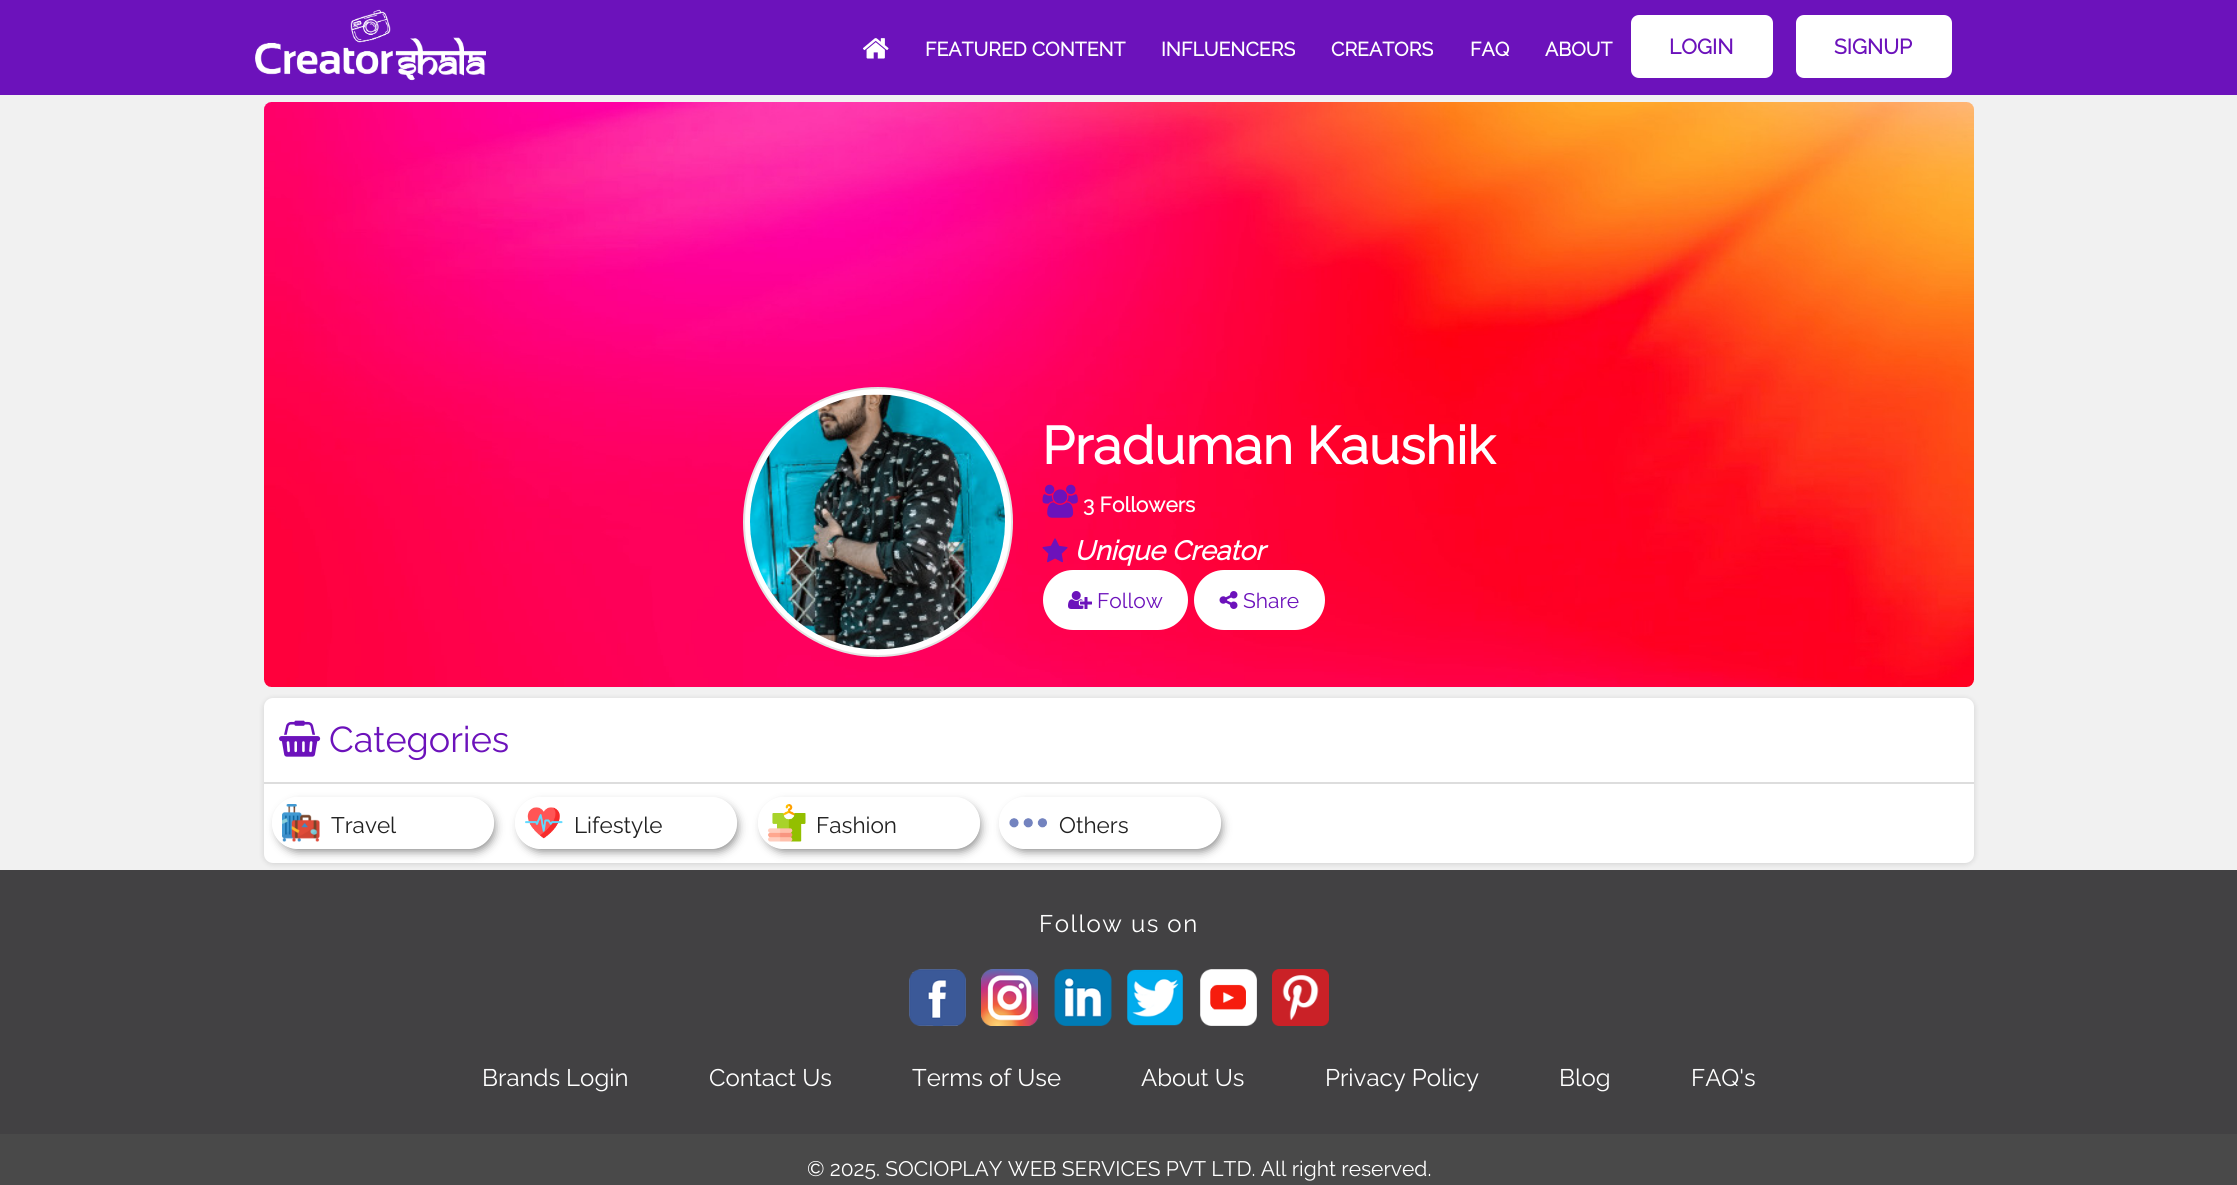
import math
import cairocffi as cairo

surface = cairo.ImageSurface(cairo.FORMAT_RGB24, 2237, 1185)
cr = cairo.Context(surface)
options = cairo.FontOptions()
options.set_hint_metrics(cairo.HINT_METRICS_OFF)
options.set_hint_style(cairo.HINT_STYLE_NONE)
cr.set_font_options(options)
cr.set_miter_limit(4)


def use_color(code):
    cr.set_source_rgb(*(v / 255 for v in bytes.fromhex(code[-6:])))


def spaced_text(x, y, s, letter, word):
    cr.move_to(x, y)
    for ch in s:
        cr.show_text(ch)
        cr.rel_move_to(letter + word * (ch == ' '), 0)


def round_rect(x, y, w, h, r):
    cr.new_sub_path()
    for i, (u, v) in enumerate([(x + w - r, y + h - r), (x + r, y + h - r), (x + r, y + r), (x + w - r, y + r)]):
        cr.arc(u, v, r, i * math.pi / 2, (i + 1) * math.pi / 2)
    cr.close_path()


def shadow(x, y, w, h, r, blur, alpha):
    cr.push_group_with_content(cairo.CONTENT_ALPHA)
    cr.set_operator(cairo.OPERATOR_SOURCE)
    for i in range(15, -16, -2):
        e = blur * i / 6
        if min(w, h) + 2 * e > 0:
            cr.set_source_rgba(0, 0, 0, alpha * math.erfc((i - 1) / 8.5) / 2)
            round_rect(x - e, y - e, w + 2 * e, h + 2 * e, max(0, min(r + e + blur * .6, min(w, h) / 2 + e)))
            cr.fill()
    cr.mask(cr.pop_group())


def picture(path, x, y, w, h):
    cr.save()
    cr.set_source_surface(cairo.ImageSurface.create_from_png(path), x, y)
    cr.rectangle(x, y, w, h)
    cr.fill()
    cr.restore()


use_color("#f1f1f1")
cr.paint()
use_color("#6c12bb")
cr.rectangle(0, 0, 2237, 95)
cr.fill()
picture("img1.png", 255, 9, 231, 72)
picture("img2.png", 863, 38, 26, 21)
cr.select_font_face("Raleway", cairo.FONT_SLANT_NORMAL, cairo.FONT_WEIGHT_BOLD)
cr.set_font_size(19.5)
use_color("#ffffff")
cr.move_to(925, 56)
cr.show_text("FEATURED CONTENT")
cr.move_to(1161, 56)
cr.show_text("INFLUENCERS")
cr.move_to(1331, 56)
cr.show_text("CREATORS")
cr.move_to(1470, 56)
cr.show_text("FAQ")
cr.move_to(1545, 56)
cr.show_text("ABOUT")
round_rect(1631, 15, 142, 63, 8)
cr.fill()
cr.set_font_size(21)
use_color("#6c12bb")
cr.move_to(1669, 54)
cr.show_text("LOGIN")
use_color("#ffffff")
round_rect(1796, 15, 156, 63, 8)
cr.fill()
use_color("#6c12bb")
cr.move_to(1834, 54)
cr.show_text("SIGNUP")
picture("img3.png", 264, 102, 1710, 585)
use_color("#ffffff")
cr.arc(878, 522, 134, 0, 2 * math.pi)
cr.fill_preserve()
use_color("#e3e3e3")
cr.stroke()
picture("img4.png", 750, 394, 255, 256)
cr.set_font_size(52.5)
use_color("#ffffff")
cr.move_to(1042, 464)
cr.show_text("Praduman Kaushik")
picture("img5.png", 1042, 484, 36, 34)
cr.set_font_size(21)
cr.move_to(1083, 512)
cr.show_text("3 Followers")
picture("img6.png", 1042, 538, 26, 25)
cr.select_font_face("Raleway", cairo.FONT_SLANT_ITALIC, cairo.FONT_WEIGHT_BOLD)
cr.set_font_size(27)
cr.move_to(1074, 560)
cr.show_text("Unique Creator")
round_rect(1043, 570, 145, 60, 30)
cr.fill()
picture("img7.png", 1068, 591, 24, 18)
cr.select_font_face("Raleway Thin")
cr.set_font_size(21)
use_color("#6c12bb")
cr.move_to(1097, 608)
cr.show_text("Follow")
use_color("#ffffff")
round_rect(1194, 570, 131, 60, 30)
cr.fill()
picture("img8.png", 1219, 591, 19, 18)
use_color("#6c12bb")
cr.move_to(1243, 608)
cr.show_text("Share")
use_color("#000000")
shadow(264, 699, 1710, 165, 9, 3, 0.14)
use_color("#ffffff")
round_rect(264, 698, 1710, 165, 9)
cr.fill()
use_color("#dddddd")
cr.rectangle(264, 782, 1710, 2)
cr.fill()
picture("img9.png", 279, 720, 42, 37)
cr.set_font_size(36)
use_color("#6c12bb")
cr.move_to(329, 752)
cr.show_text("Categories")
cr.save()
cr.set_fill_rule(cairo.FILL_RULE_EVEN_ODD)
cr.new_path()
cr.move_to(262, 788)
cr.line_to(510, 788)
cr.line_to(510, 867)
cr.line_to(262, 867)
cr.close_path()
cr.move_to(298, 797)
cr.line_to(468, 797)
cr.curve_to(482.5, 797, 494, 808.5, 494, 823)
cr.curve_to(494, 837.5, 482.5, 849, 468, 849)
cr.line_to(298, 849)
cr.curve_to(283.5, 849, 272, 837.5, 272, 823)
cr.curve_to(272, 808.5, 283.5, 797, 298, 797)
cr.close_path()
cr.clip()
use_color("#808080")
shadow(278, 804, 216, 47, 23.5, 5, 1)
cr.restore()
picture("img10.png", 282, 804, 38, 38)
cr.set_font_size(22.5)
use_color("#212121")
cr.move_to(331, 833)
cr.show_text("Travel")
cr.save()
cr.set_fill_rule(cairo.FILL_RULE_EVEN_ODD)
cr.new_path()
cr.move_to(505, 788)
cr.line_to(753, 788)
cr.line_to(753, 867)
cr.line_to(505, 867)
cr.close_path()
cr.move_to(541, 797)
cr.line_to(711, 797)
cr.curve_to(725.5, 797, 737, 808.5, 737, 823)
cr.curve_to(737, 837.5, 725.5, 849, 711, 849)
cr.line_to(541, 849)
cr.curve_to(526.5, 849, 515, 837.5, 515, 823)
cr.curve_to(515, 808.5, 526.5, 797, 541, 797)
cr.close_path()
cr.clip()
use_color("#808080")
shadow(521, 804, 216, 47, 23.5, 5, 1)
cr.restore()
picture("img11.png", 525, 807, 38, 32)
cr.move_to(574, 833)
cr.show_text("Lifestyle")
cr.save()
cr.set_fill_rule(cairo.FILL_RULE_EVEN_ODD)
cr.new_path()
cr.move_to(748, 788)
cr.line_to(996, 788)
cr.line_to(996, 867)
cr.line_to(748, 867)
cr.close_path()
cr.move_to(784, 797)
cr.line_to(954, 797)
cr.curve_to(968.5, 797, 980, 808.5, 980, 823)
cr.curve_to(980, 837.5, 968.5, 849, 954, 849)
cr.line_to(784, 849)
cr.curve_to(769.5, 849, 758, 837.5, 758, 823)
cr.curve_to(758, 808.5, 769.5, 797, 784, 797)
cr.close_path()
cr.clip()
use_color("#808080")
shadow(764, 804, 216, 47, 23.5, 5, 1)
cr.restore()
picture("img12.png", 768, 804, 38, 38)
cr.move_to(816, 833)
cr.show_text("Fashion")
cr.save()
cr.set_fill_rule(cairo.FILL_RULE_EVEN_ODD)
cr.new_path()
cr.move_to(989, 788)
cr.line_to(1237, 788)
cr.line_to(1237, 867)
cr.line_to(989, 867)
cr.close_path()
cr.move_to(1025, 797)
cr.line_to(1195, 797)
cr.curve_to(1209.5, 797, 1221, 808.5, 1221, 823)
cr.curve_to(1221, 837.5, 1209.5, 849, 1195, 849)
cr.line_to(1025, 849)
cr.curve_to(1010.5, 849, 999, 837.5, 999, 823)
cr.curve_to(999, 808.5, 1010.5, 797, 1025, 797)
cr.close_path()
cr.clip()
use_color("#808080")
shadow(1005, 804, 216, 47, 23.5, 5, 1)
cr.restore()
picture("img13.png", 1009, 818, 38, 10)
cr.move_to(1059, 833)
cr.show_text("Others")
use_color("#424143")
cr.rectangle(0, 870, 2237, 264)
cr.fill()
use_color("#494949")
cr.rectangle(0, 1134, 2237, 51)
cr.fill()
cr.set_font_size(24)
use_color("#ffffff")
spaced_text(1039, 932, "Follow us on", 1.5, 0)
picture("img14.png", 909, 969, 57, 57)
picture("img15.png", 981, 969, 57, 57)
picture("img16.png", 1054, 969, 58, 57)
picture("img17.png", 1127, 969, 56, 57)
picture("img18.png", 1200, 969, 57, 57)
picture("img19.png", 1272, 969, 57, 57)
cr.move_to(482, 1086)
cr.show_text("Brands Login")
cr.move_to(709, 1086)
cr.show_text("Contact Us")
cr.move_to(912, 1086)
cr.show_text("Terms of Use")
cr.move_to(1141, 1086)
cr.show_text("About Us")
cr.move_to(1325, 1086)
cr.show_text("Privacy Policy")
cr.move_to(1559, 1086)
cr.show_text("Blog")
cr.move_to(1691, 1086)
cr.show_text("FAQ's")
cr.set_font_size(21)
cr.move_to(807, 1176)
cr.show_text("© 2025. SOCIOPLAY WEB SERVICES PVT LTD. All right reserved.")
surface.write_to_png("result.png")
